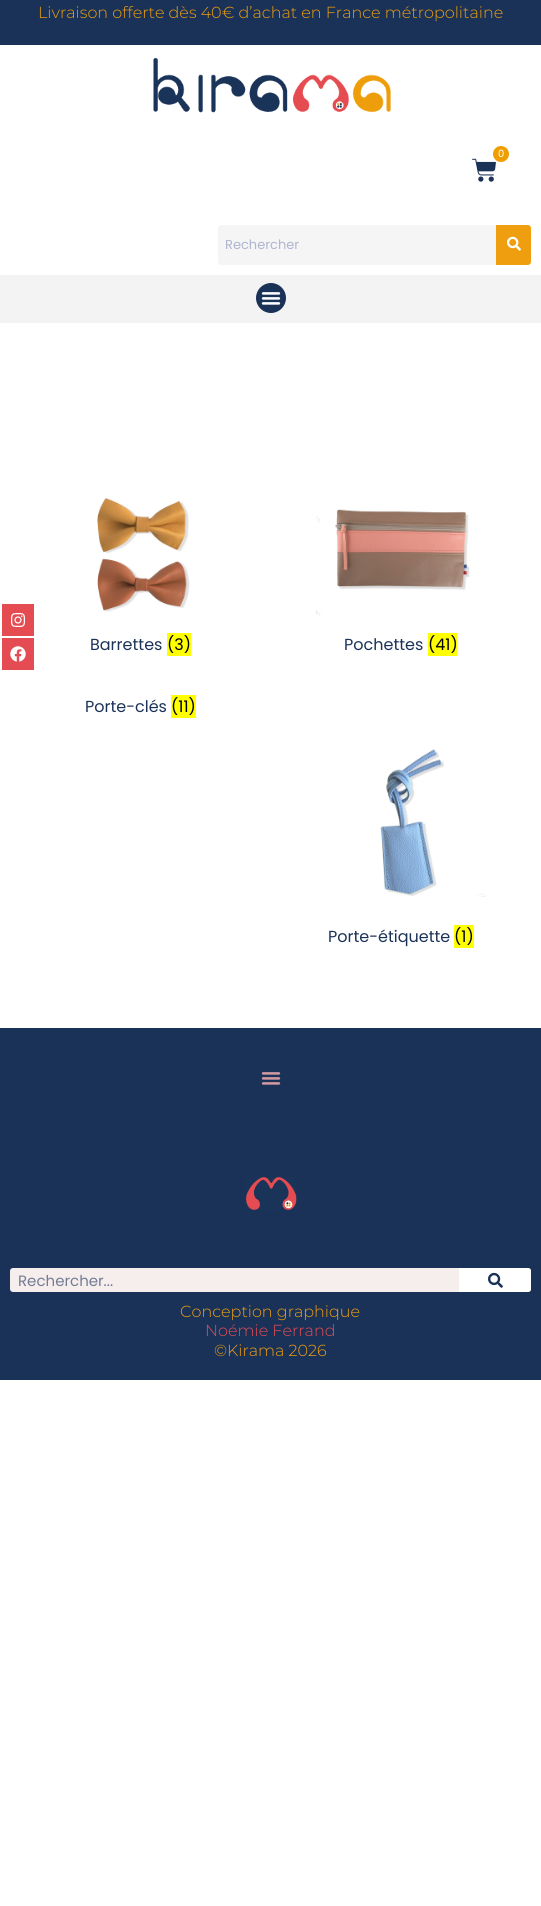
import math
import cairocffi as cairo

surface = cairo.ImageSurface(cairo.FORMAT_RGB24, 541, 1906)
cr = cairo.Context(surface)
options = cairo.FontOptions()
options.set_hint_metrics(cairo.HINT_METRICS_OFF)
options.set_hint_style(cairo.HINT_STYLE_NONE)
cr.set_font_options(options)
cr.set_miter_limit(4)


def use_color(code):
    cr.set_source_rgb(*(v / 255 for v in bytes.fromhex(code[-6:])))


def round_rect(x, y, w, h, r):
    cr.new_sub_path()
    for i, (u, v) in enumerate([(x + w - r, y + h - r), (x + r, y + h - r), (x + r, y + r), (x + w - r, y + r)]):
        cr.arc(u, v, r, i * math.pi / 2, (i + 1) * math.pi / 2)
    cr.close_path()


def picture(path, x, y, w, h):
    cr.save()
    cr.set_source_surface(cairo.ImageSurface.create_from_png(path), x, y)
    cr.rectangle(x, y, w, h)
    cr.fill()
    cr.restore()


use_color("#ffffff")
cr.paint()
use_color("#e54c52")
cr.rectangle(2, 604, 32, 32)
cr.fill()
picture("img1.png", 11, 613, 14, 14)
use_color("#e54b52")
cr.rectangle(2, 638, 32, 32)
cr.fill()
picture("img2.png", 10, 646, 16, 16)
use_color("#1b3258")
cr.rectangle(0, 0, 541, 45)
cr.fill()
cr.select_font_face("Montserrat Light")
cr.set_font_size(16)
use_color("#ee9e0e")
cr.move_to(38, 18)
cr.show_text("Livraison offerte dès 40€ d’achat en France métropolitaine")
picture("img3.png", 153, 58, 238, 55)
picture("img4.png", 472, 158, 24, 24)
use_color("#ee9e01")
cr.arc(501, 154, 8, 0, 2 * math.pi)
cr.fill()
cr.select_font_face("Poppins")
cr.set_font_size(10)
use_color("#ffffff")
cr.move_to(498, 157)
cr.show_text("0")
use_color("#f5f5f5")
cr.new_path()
cr.move_to(221, 225)
cr.line_to(496, 225)
cr.line_to(496, 265)
cr.line_to(221, 265)
cr.curve_to(219.5, 265, 218, 263.5, 218, 262)
cr.line_to(218, 228)
cr.curve_to(218, 226.5, 219.5, 225, 221, 225)
cr.close_path()
cr.fill()
cr.set_font_size(13)
use_color("#b0b5cf")
cr.move_to(225, 249)
cr.show_text("Rechercher")
use_color("#ee9e0e")
cr.new_path()
cr.move_to(496, 225)
cr.line_to(528, 225)
cr.curve_to(529.5, 225, 531, 226.5, 531, 228)
cr.line_to(531, 262)
cr.curve_to(531, 263.5, 529.5, 265, 528, 265)
cr.line_to(496, 265)
cr.close_path()
cr.fill()
picture("img5.png", 507, 236, 14, 15)
use_color("#f3f3f3")
cr.rectangle(0, 275, 541, 48)
cr.fill()
use_color("#1b3258")
cr.arc(271, 298, 15, 0, 2 * math.pi)
cr.fill()
picture("img6.png", 261, 292, 20, 13)
picture("img7.png", 97, 498, 93, 114)
cr.set_font_size(16)
cr.move_to(90, 650)
cr.show_text("Barrettes")
use_color("#ffff00")
cr.rectangle(167, 633, 24, 23)
cr.fill()
use_color("#000000")
cr.move_to(167, 650)
cr.show_text("(3)")
picture("img8.png", 316, 509, 154, 107)
use_color("#1b3258")
cr.move_to(344, 650)
cr.show_text("Pochettes")
use_color("#ffff00")
cr.rectangle(428, 633, 29, 23)
cr.fill()
use_color("#000000")
cr.move_to(428, 650)
cr.show_text("(41)")
use_color("#1b3258")
cr.move_to(85, 712)
cr.show_text("Porte-clés")
use_color("#ffff00")
cr.rectangle(171, 695, 25, 23)
cr.fill()
use_color("#000000")
cr.move_to(171, 712)
cr.show_text("(11)")
picture("img9.png", 380, 749, 106, 148)
use_color("#1b3258")
cr.move_to(328, 942)
cr.show_text("Porte-étiquette")
use_color("#ffff00")
cr.rectangle(454, 925, 20, 23)
cr.fill()
use_color("#000000")
cr.move_to(454, 942)
cr.show_text("(1)")
use_color("#1b3258")
cr.rectangle(0, 1028, 541, 352)
cr.fill()
picture("img10.png", 261, 1072, 20, 13)
picture("img11.png", 246, 1177, 51, 33)
use_color("#f6eded")
round_rect(10, 1268, 521, 24, 3)
cr.fill()
cr.set_font_size(15)
use_color("#737d94")
cr.move_to(18, 1286)
cr.show_text("Rechercher...")
use_color("#ffffff")
cr.new_path()
cr.move_to(459, 1268)
cr.line_to(528, 1268)
cr.curve_to(529.5, 1268, 531, 1269.5, 531, 1271)
cr.line_to(531, 1289)
cr.curve_to(531, 1290.5, 529.5, 1292, 528, 1292)
cr.line_to(459, 1292)
cr.close_path()
cr.fill()
picture("img12.png", 488, 1272, 15, 16)
cr.select_font_face("Montserrat Light")
cr.set_font_size(16)
use_color("#ee9e0e")
cr.move_to(180, 1317)
cr.show_text("Conception graphique")
use_color("#e54b52")
cr.move_to(205, 1336)
cr.show_text("Noémie Ferrand")
use_color("#ee9e0e")
cr.move_to(214, 1356)
cr.show_text("©Kirama 2026")
surface.write_to_png("result.png")
